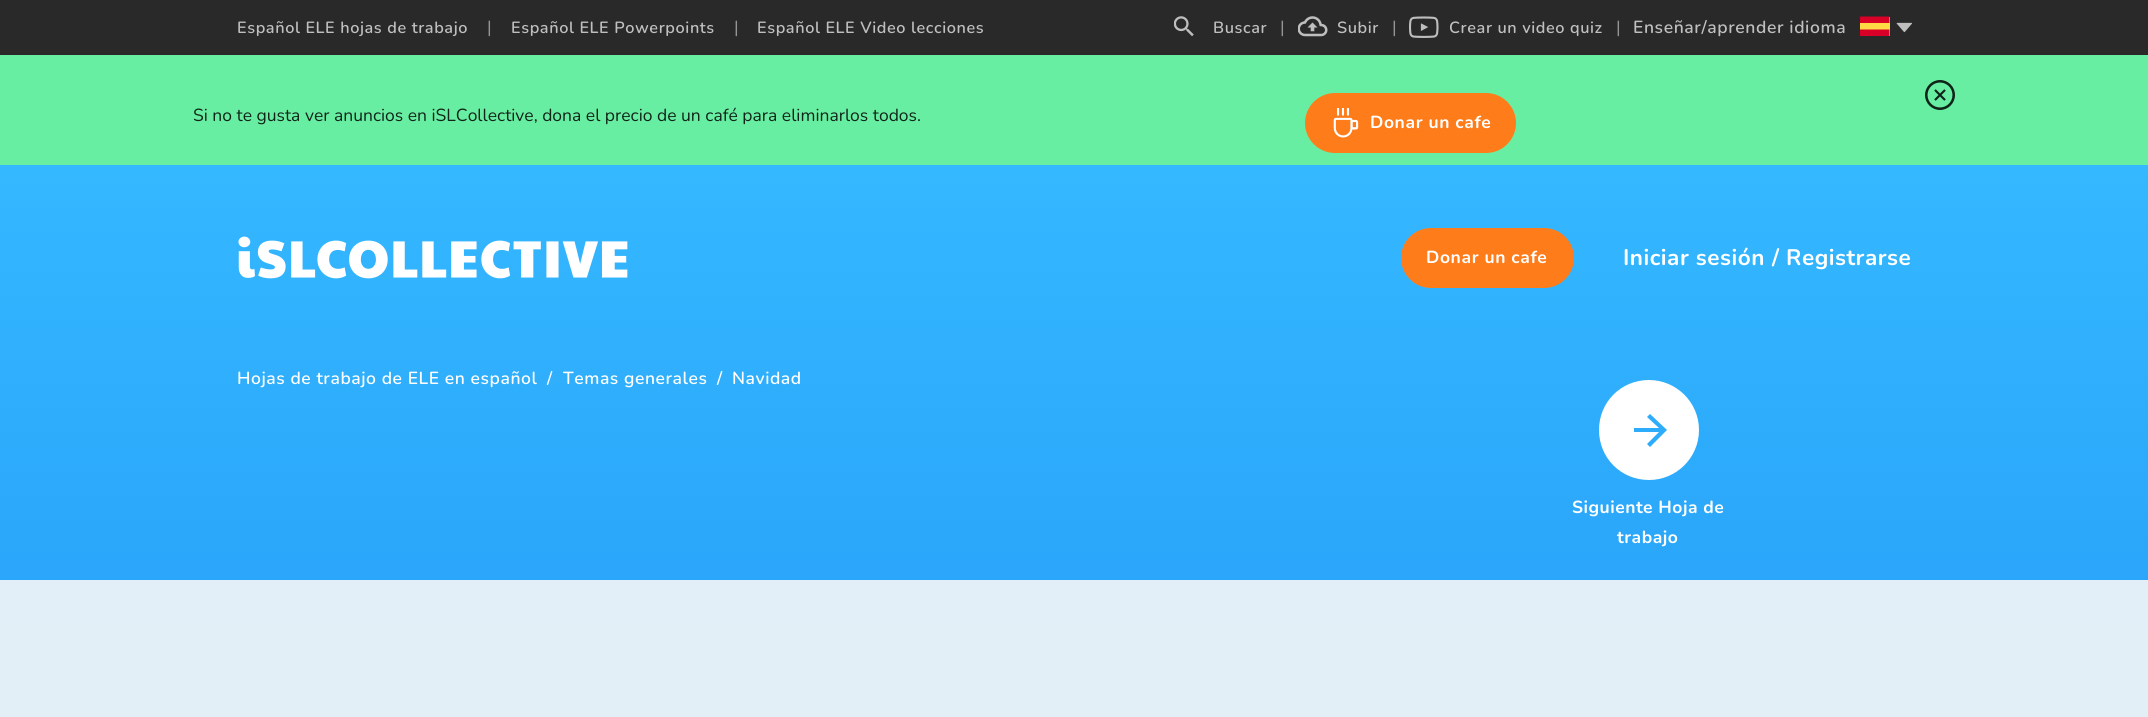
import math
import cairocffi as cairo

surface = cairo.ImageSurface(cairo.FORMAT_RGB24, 2148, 717)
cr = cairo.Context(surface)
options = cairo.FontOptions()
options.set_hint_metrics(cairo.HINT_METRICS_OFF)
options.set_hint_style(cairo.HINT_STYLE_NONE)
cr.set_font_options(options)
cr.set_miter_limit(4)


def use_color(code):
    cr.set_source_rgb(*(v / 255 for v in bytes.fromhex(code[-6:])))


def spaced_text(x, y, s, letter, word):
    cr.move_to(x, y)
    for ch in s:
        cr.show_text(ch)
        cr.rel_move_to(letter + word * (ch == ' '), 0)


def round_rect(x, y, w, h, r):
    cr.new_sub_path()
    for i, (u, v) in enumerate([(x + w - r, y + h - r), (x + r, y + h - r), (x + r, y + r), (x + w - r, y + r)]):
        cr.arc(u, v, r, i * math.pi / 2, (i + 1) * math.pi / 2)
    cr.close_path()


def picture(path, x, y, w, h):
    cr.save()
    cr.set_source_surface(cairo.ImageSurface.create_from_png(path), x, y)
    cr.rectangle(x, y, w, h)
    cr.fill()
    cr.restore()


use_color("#ffffff")
cr.paint()
use_color("#292929")
cr.rectangle(0, 0, 2148, 55)
cr.fill()
cr.select_font_face("Nunito ExtraLight")
cr.set_font_size(16.25)
use_color("#bfbfbf")
spaced_text(237, 33, "Español ELE hojas de trabajo", 0.6, 0)
cr.select_font_face("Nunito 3 ExtraLight")
cr.set_font_size(17.5)
use_color("#949494")
cr.move_to(487, 33)
cr.show_text("|")
cr.select_font_face("Nunito ExtraLight")
cr.set_font_size(16.25)
use_color("#bfbfbf")
spaced_text(511, 33, "Español ELE Powerpoints", 0.6, 0)
cr.select_font_face("Nunito 3 ExtraLight")
cr.set_font_size(17.5)
use_color("#949494")
cr.move_to(734, 33)
cr.show_text("|")
cr.select_font_face("Nunito ExtraLight")
cr.set_font_size(16.25)
use_color("#bfbfbf")
spaced_text(757, 33, "Español ELE Video lecciones", 0.6, 0)
picture("img1.png", 1174, 16, 20, 21)
spaced_text(1213, 33, "Buscar", 0.6, 0)
cr.select_font_face("Nunito 3 ExtraLight")
cr.set_font_size(17.5)
use_color("#949494")
cr.move_to(1280, 33)
cr.show_text("|")
picture("img2.png", 1298, 16, 30, 21)
cr.select_font_face("Nunito ExtraLight")
cr.set_font_size(16.25)
use_color("#bfbfbf")
spaced_text(1337, 33, "Subir", 0.6, 0)
cr.select_font_face("Nunito 3 ExtraLight")
cr.set_font_size(17.5)
use_color("#949494")
cr.move_to(1392, 33)
cr.show_text("|")
picture("img3.png", 1409, 16, 30, 22)
cr.select_font_face("Nunito ExtraLight")
cr.set_font_size(16.25)
use_color("#bfbfbf")
spaced_text(1449, 33, "Crear un video quiz", 0.6, 0)
cr.select_font_face("Nunito 3 ExtraLight")
cr.set_font_size(17.5)
use_color("#949494")
cr.move_to(1616, 33)
cr.show_text("|")
cr.select_font_face("Nunito ExtraLight")
use_color("#bfbfbf")
spaced_text(1633, 33, "Enseñar/aprender idioma", 0.6, 0)
use_color("#ffda44")
cr.rectangle(1860, 17, 30, 19)
cr.fill()
use_color("#d80027")
cr.new_path()
cr.move_to(1860, 16.5)
cr.line_to(1889.5, 16.5)
cr.line_to(1889.5, 23)
cr.line_to(1860, 23)
cr.close_path()
cr.move_to(1860, 29.5)
cr.line_to(1889.5, 29.5)
cr.line_to(1889.5, 36)
cr.line_to(1860, 36)
cr.close_path()
cr.fill()
picture("img4.png", 1896, 22, 17, 11)
use_color("#68eea2")
cr.rectangle(0, 55, 2148, 110)
cr.fill()
picture("img5.png", 1925, 80, 30, 30)
cr.select_font_face("Nunito 3 ExtraLight")
use_color("#102418")
cr.move_to(193, 121)
cr.show_text("Si no te gusta ver anuncios en iSLCollective, dona el precio de un café para eliminarlos todos.")
use_color("#ff7c1a")
round_rect(1305, 93, 211, 60, 30)
cr.fill()
picture("img6.png", 1333, 108, 26, 30)
cr.select_font_face("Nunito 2 ExtraLight")
use_color("#ffffff")
spaced_text(1370, 128, "Donar un cafe", 0.6, 0)
picture("img7.png", 0, 165, 2148, 552)
picture("img8.png", 238, 236, 390, 43)
use_color("#ff7c1a")
round_rect(1401, 228, 173, 60, 30)
cr.fill()
use_color("#ffffff")
spaced_text(1426, 263, "Donar un cafe", 0.6, 0)
cr.set_font_size(22.5)
spaced_text(1623, 265, "Iniciar sesión", 0.5, 0)
spaced_text(1772, 265, "/", 0.5, 0)
spaced_text(1786, 265, "Registrarse", 0.5, 0)
cr.select_font_face("Nunito ExtraLight")
cr.set_font_size(17.5)
spaced_text(237, 384, "Hojas de trabajo de ELE en español", 0.55, 0)
spaced_text(547, 384, "/", 0.55, 0)
spaced_text(563, 384, "Temas generales", 0.55, 0)
spaced_text(717, 384, "/", 0.55, 0)
spaced_text(732, 384, "Navidad", 0.55, 0)
cr.set_fill_rule(cairo.FILL_RULE_EVEN_ODD)
cr.new_path()
cr.move_to(1649, 380)
cr.curve_to(1676, 380, 1699, 402, 1699, 430)
cr.curve_to(1699, 458, 1676, 480, 1649, 480)
cr.curve_to(1621, 480, 1599, 458, 1599, 430)
cr.curve_to(1599, 402, 1621, 380, 1649, 380)
cr.close_path()
cr.move_to(1650, 414)
cr.line_to(1647, 417)
cr.line_to(1659, 428)
cr.line_to(1634, 428)
cr.line_to(1634, 432)
cr.line_to(1659, 432)
cr.line_to(1647, 444)
cr.line_to(1650, 447)
cr.line_to(1667, 430)
cr.close_path()
cr.fill()
cr.select_font_face("Nunito 2 ExtraLight")
spaced_text(1572, 513, "Siguiente Hoja de", 0.5, 0)
spaced_text(1617, 543, "trabajo", 0.5, 0)
cr.set_source_rgba(0.969, 0.969, 0.969, 0.9)
cr.rectangle(0, 580, 2148, 137)
cr.fill()
surface.write_to_png("result.png")
